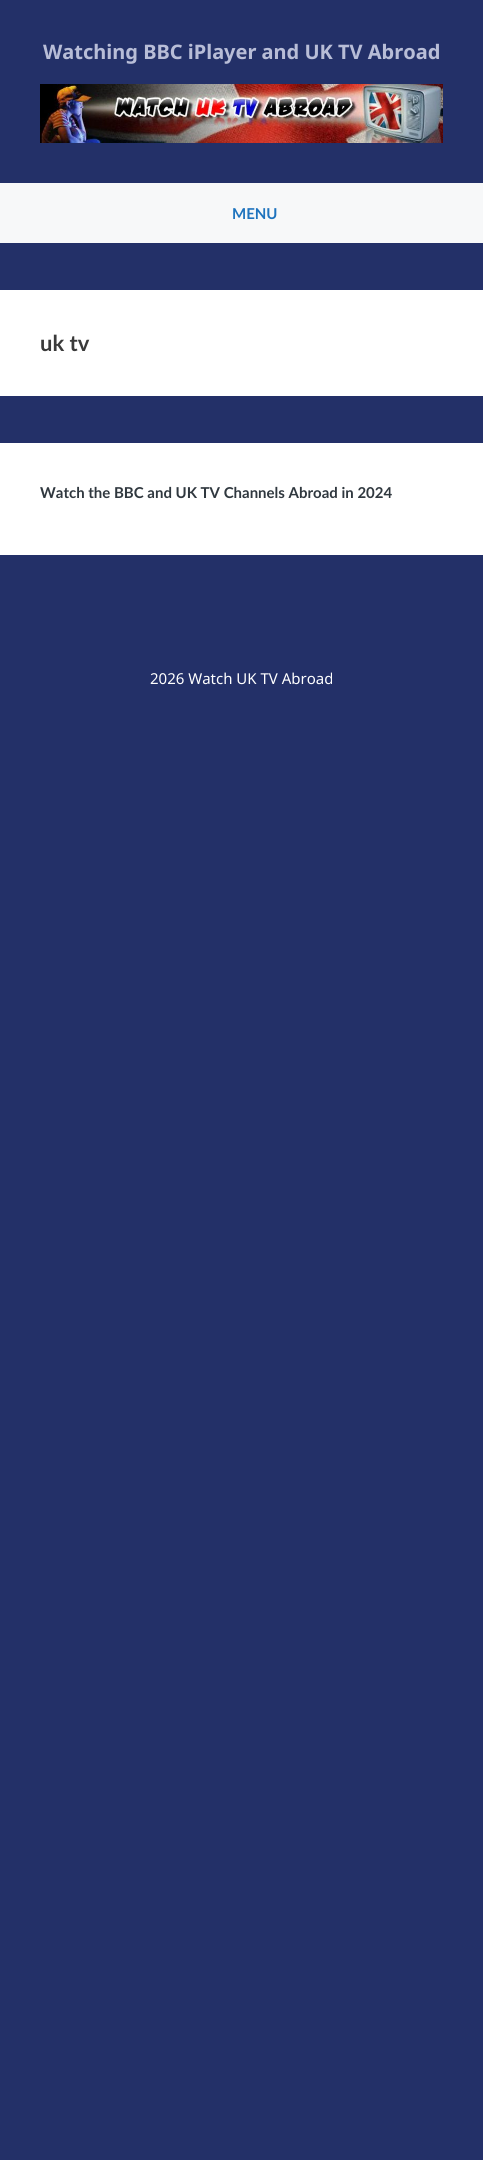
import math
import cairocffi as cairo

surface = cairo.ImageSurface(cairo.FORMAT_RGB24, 483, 2160)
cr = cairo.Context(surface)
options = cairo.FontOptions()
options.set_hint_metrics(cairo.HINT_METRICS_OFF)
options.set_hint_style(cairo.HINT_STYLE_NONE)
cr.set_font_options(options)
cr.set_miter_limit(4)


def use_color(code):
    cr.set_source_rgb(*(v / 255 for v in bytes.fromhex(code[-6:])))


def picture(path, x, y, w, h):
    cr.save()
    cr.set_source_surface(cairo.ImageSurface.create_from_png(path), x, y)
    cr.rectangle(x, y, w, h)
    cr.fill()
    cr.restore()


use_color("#233068")
cr.paint()
cr.select_font_face("Noto Sans", cairo.FONT_SLANT_NORMAL, cairo.FONT_WEIGHT_BOLD)
cr.set_font_size(20)
use_color("#b8bdd7")
cr.move_to(43, 59)
cr.show_text("Watching BBC iPlayer and UK TV Abroad")
picture("img1.png", 40, 84, 403, 59)
use_color("#f7f8f9")
cr.rectangle(0, 183, 483, 60)
cr.fill()
cr.select_font_face("Lato", cairo.FONT_SLANT_NORMAL, cairo.FONT_WEIGHT_BOLD)
cr.set_font_size(15)
use_color("#1e73be")
cr.move_to(232, 219)
cr.show_text("MENU")
use_color("#ffffff")
cr.rectangle(0, 290, 483, 106)
cr.fill()
cr.set_font_size(22)
use_color("#3a3a3a")
cr.move_to(40, 351)
cr.show_text("uk tv")
use_color("#ffffff")
cr.rectangle(0, 443, 483, 112)
cr.fill()
cr.set_font_size(15)
use_color("#30383f")
cr.move_to(40, 498)
cr.show_text("Watch the BBC and UK TV Channels Abroad in 2024")
cr.select_font_face("Noto Sans")
use_color("#ffffff")
cr.move_to(150, 684)
cr.show_text("2026 Watch UK TV Abroad")
surface.write_to_png("result.png")
